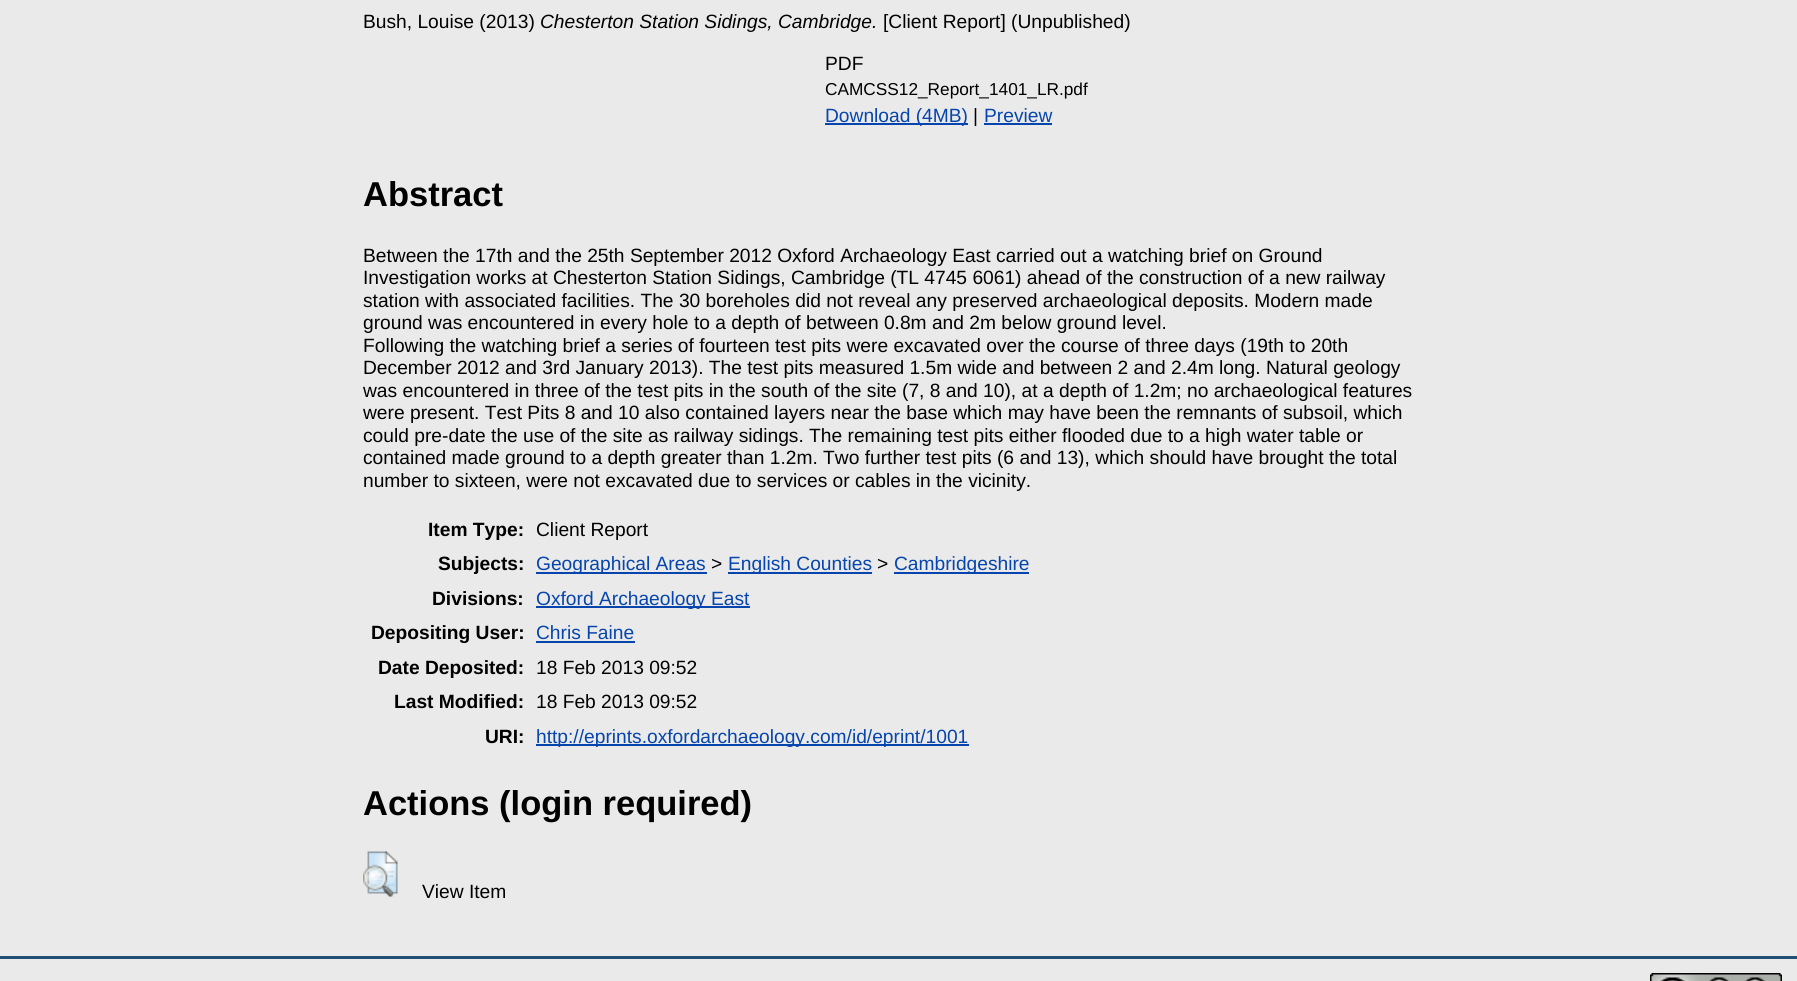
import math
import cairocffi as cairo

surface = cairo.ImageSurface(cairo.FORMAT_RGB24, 1797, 981)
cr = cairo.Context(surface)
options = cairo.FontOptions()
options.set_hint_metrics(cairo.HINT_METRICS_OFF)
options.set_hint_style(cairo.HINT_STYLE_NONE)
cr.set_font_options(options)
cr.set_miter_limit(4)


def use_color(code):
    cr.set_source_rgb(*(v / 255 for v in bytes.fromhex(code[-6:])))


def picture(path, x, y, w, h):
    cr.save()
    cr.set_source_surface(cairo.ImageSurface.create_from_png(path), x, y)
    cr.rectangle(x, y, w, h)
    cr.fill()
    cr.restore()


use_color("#eaeaea")
cr.paint()
cr.select_font_face("Liberation Sans")
cr.set_font_size(19.2)
use_color("#000000")
cr.move_to(363, 28)
cr.show_text("Bush, Louise (2013)")
cr.select_font_face("Liberation Sans", cairo.FONT_SLANT_ITALIC)
cr.move_to(540, 28)
cr.show_text("Chesterton Station Sidings, Cambridge.")
cr.select_font_face("Liberation Sans")
cr.move_to(883, 28)
cr.show_text("[Client Report] (Unpublished)")
cr.move_to(825, 70)
cr.show_text("PDF")
cr.set_font_size(17.25)
cr.move_to(825, 95)
cr.show_text("CAMCSS12_Report_1401_LR.pdf")
use_color("#0645ad")
cr.rectangle(825, 123, 143, 2)
cr.fill()
cr.set_font_size(19.2)
cr.move_to(825, 122)
cr.show_text("Download (4MB)")
use_color("#000000")
cr.move_to(973, 122)
cr.show_text("|")
use_color("#0645ad")
cr.move_to(984, 122)
cr.show_text("Preview")
cr.rectangle(984, 123, 68, 2)
cr.fill()
cr.select_font_face("Liberation Sans", cairo.FONT_SLANT_NORMAL, cairo.FONT_WEIGHT_BOLD)
cr.set_font_size(34.5)
use_color("#000000")
cr.move_to(363, 206)
cr.show_text("Abstract")
cr.select_font_face("Liberation Sans")
cr.set_font_size(19.2)
cr.move_to(363, 262)
cr.show_text("Between the 17th and the 25th September 2012 Oxford Archaeology East carried out a watching brief on Ground")
cr.move_to(363, 284)
cr.show_text("Investigation works at Chesterton Station Sidings, Cambridge (TL 4745 6061) ahead of the construction of a new railway")
cr.move_to(363, 307)
cr.show_text("station with associated facilities. The 30 boreholes did not reveal any preserved archaeological deposits. Modern made")
cr.move_to(363, 329)
cr.show_text("ground was encountered in every hole to a depth of between 0.8m and 2m below ground level.")
cr.move_to(363, 352)
cr.show_text("Following the watching brief a series of fourteen test pits were excavated over the course of three days (19th to 20th")
cr.move_to(363, 374)
cr.show_text("December 2012 and 3rd January 2013). The test pits measured 1.5m wide and between 2 and 2.4m long. Natural geology")
cr.move_to(363, 397)
cr.show_text("was encountered in three of the test pits in the south of the site (7, 8 and 10), at a depth of 1.2m; no archaeological features")
cr.move_to(363, 419)
cr.show_text("were present. Test Pits 8 and 10 also contained layers near the base which may have been the remnants of subsoil, which")
cr.move_to(363, 442)
cr.show_text("could pre-date the use of the site as railway sidings. The remaining test pits either flooded due to a high water table or")
cr.move_to(363, 464)
cr.show_text("contained made ground to a depth greater than 1.2m. Two further test pits (6 and 13), which should have brought the total")
cr.move_to(363, 487)
cr.show_text("number to sixteen, were not excavated due to services or cables in the vicinity.")
cr.select_font_face("Liberation Sans", cairo.FONT_SLANT_NORMAL, cairo.FONT_WEIGHT_BOLD)
cr.move_to(428, 536)
cr.show_text("Item Type:")
cr.select_font_face("Liberation Sans")
cr.move_to(536, 536)
cr.show_text("Client Report")
cr.select_font_face("Liberation Sans", cairo.FONT_SLANT_NORMAL, cairo.FONT_WEIGHT_BOLD)
cr.move_to(438, 570)
cr.show_text("Subjects:")
use_color("#0645ad")
cr.rectangle(536, 572, 171, 2)
cr.fill()
cr.select_font_face("Liberation Sans")
cr.move_to(536, 570)
cr.show_text("Geographical Areas")
use_color("#000000")
cr.move_to(711, 570)
cr.show_text(">")
use_color("#0645ad")
cr.rectangle(728, 572, 144, 2)
cr.fill()
cr.move_to(728, 570)
cr.show_text("English Counties")
use_color("#000000")
cr.move_to(877, 570)
cr.show_text(">")
use_color("#0645ad")
cr.rectangle(894, 572, 135, 2)
cr.fill()
cr.move_to(894, 570)
cr.show_text("Cambridgeshire")
cr.select_font_face("Liberation Sans", cairo.FONT_SLANT_NORMAL, cairo.FONT_WEIGHT_BOLD)
use_color("#000000")
cr.move_to(432, 605)
cr.show_text("Divisions:")
use_color("#0645ad")
cr.rectangle(536, 606, 214, 2)
cr.fill()
cr.select_font_face("Liberation Sans")
cr.move_to(536, 605)
cr.show_text("Oxford Archaeology East")
cr.select_font_face("Liberation Sans", cairo.FONT_SLANT_NORMAL, cairo.FONT_WEIGHT_BOLD)
use_color("#000000")
cr.move_to(371, 639)
cr.show_text("Depositing User:")
cr.select_font_face("Liberation Sans")
use_color("#0645ad")
cr.move_to(536, 639)
cr.show_text("Chris Faine")
cr.rectangle(536, 641, 99, 2)
cr.fill()
cr.select_font_face("Liberation Sans", cairo.FONT_SLANT_NORMAL, cairo.FONT_WEIGHT_BOLD)
use_color("#000000")
cr.move_to(378, 674)
cr.show_text("Date Deposited:")
cr.select_font_face("Liberation Sans")
cr.move_to(536, 674)
cr.show_text("18 Feb 2013 09:52")
cr.select_font_face("Liberation Sans", cairo.FONT_SLANT_NORMAL, cairo.FONT_WEIGHT_BOLD)
cr.move_to(394, 708)
cr.show_text("Last Modified:")
cr.select_font_face("Liberation Sans")
cr.move_to(536, 708)
cr.show_text("18 Feb 2013 09:52")
cr.select_font_face("Liberation Sans", cairo.FONT_SLANT_NORMAL, cairo.FONT_WEIGHT_BOLD)
cr.move_to(485, 743)
cr.show_text("URI:")
use_color("#0645ad")
cr.rectangle(536, 744, 433, 2)
cr.fill()
cr.select_font_face("Liberation Sans")
cr.move_to(536, 743)
cr.show_text("http://eprints.oxfordarchaeology.com/id/eprint/1001")
cr.select_font_face("Liberation Sans", cairo.FONT_SLANT_NORMAL, cairo.FONT_WEIGHT_BOLD)
cr.set_font_size(34.5)
use_color("#000000")
cr.move_to(363, 815)
cr.show_text("Actions (login required)")
picture("img1.png", 363, 851, 35, 46)
cr.select_font_face("Liberation Sans")
cr.set_font_size(19.2)
cr.move_to(422, 898)
cr.show_text("View Item")
use_color("#204f76")
cr.rectangle(0, 956, 1797, 3)
cr.fill()
picture("img2.png", 1650, 973, 132, 8)
surface.write_to_png("result.png")
